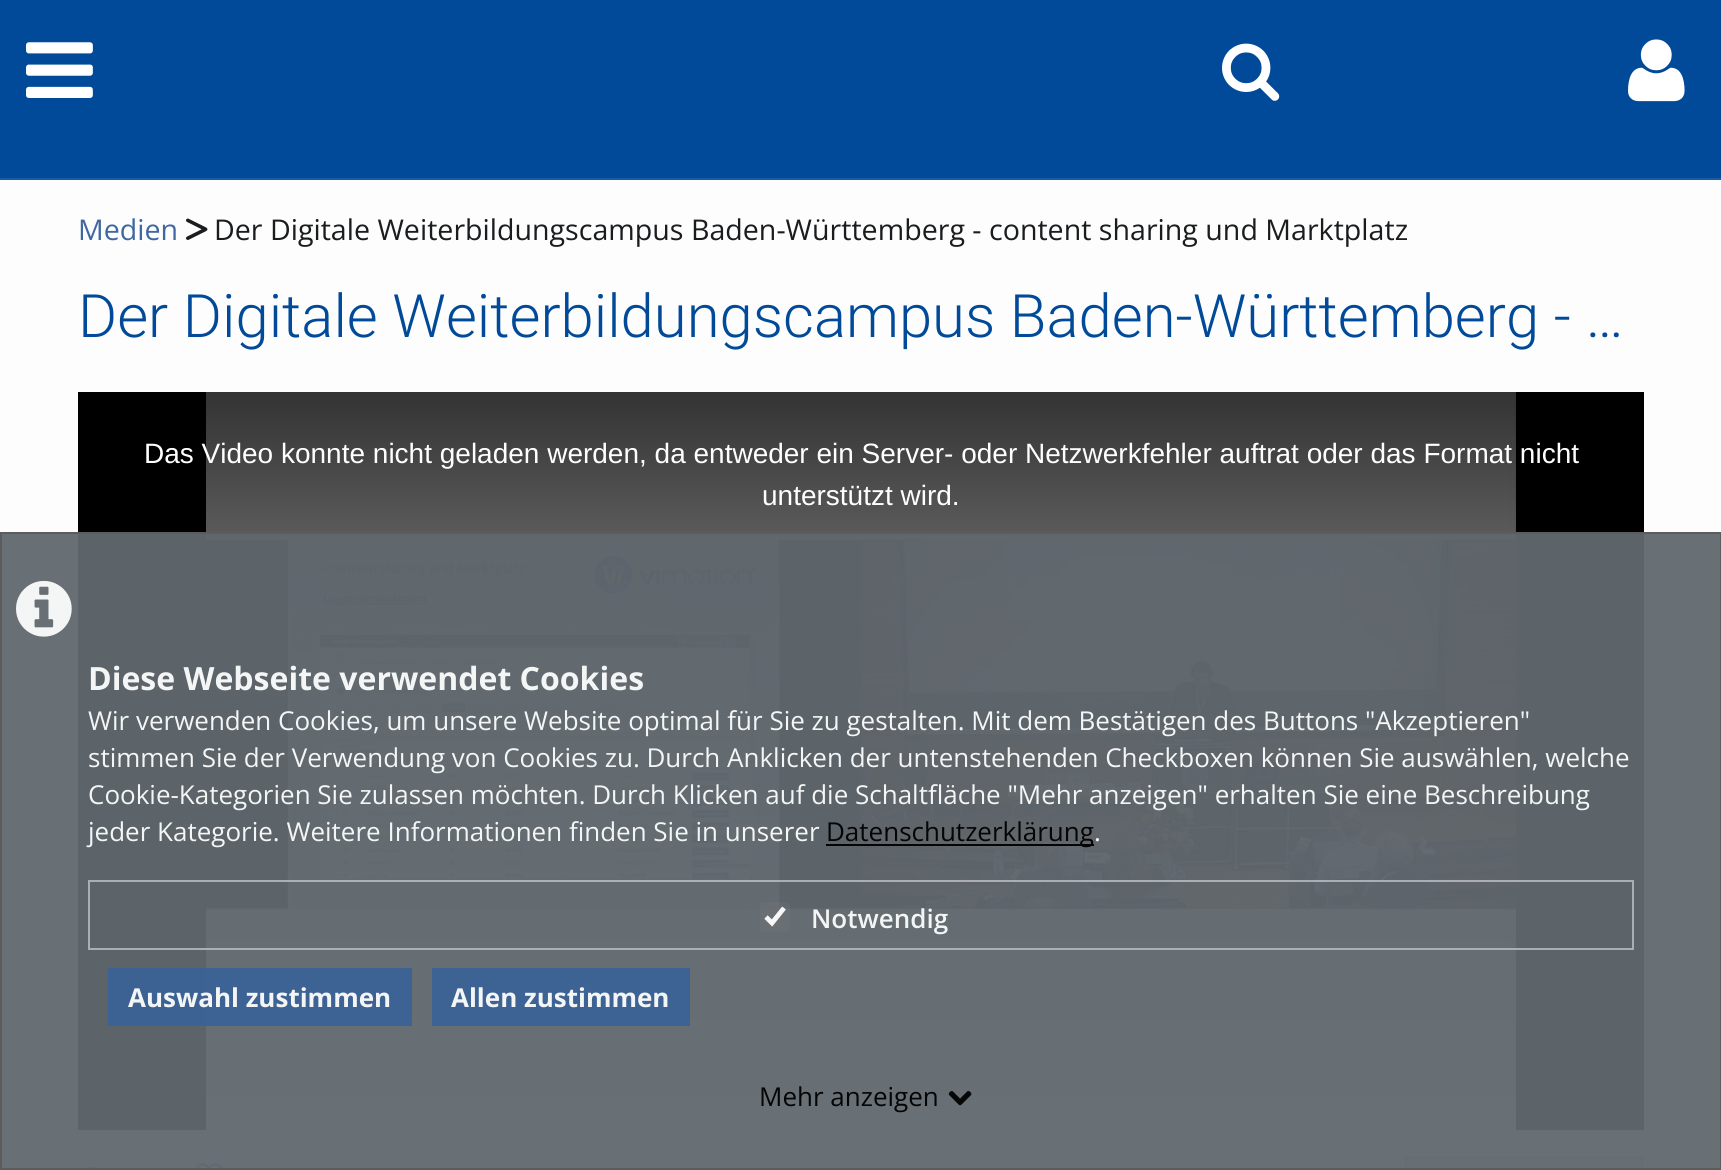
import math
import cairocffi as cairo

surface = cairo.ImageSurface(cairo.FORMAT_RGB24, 1721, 1170)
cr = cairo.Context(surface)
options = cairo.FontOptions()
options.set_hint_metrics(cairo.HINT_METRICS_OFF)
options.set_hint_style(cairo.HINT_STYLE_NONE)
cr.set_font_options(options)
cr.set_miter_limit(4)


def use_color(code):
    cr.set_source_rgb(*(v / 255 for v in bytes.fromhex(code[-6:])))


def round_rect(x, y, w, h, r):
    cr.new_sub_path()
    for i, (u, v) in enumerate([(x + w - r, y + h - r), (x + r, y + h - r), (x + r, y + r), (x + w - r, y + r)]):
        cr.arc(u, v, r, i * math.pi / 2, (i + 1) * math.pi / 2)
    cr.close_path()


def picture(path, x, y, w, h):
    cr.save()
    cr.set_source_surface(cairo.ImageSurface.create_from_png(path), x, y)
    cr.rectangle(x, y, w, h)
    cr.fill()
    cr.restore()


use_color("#fdfdfd")
cr.paint()
use_color("#004a99")
cr.rectangle(0, 0, 1721, 178)
cr.fill()
use_color("#1a5ca3")
cr.rectangle(0, 178, 1721, 2)
cr.fill()
picture("img1.png", 26, 42, 67, 56)
picture("img2.png", 1222, 43, 58, 58)
picture("img3.png", 1628, 39, 57, 63)
cr.select_font_face("Open Sans")
cr.set_font_size(28.6)
use_color("#3f68a2")
cr.move_to(78, 240)
cr.show_text("Medien")
picture("img4.png", 186, 218, 22, 22)
use_color("#1a1c1e")
cr.move_to(214, 240)
cr.show_text("Der Digitale Weiterbildungscampus Baden-Württemberg - content sharing und Marktplatz")
cr.select_font_face("Roboto Light")
cr.set_font_size(59.8)
use_color("#004a99")
cr.move_to(78, 337)
cr.show_text("Der Digitale Weiterbildungscampus Baden-Württemberg - …")
use_color("#000000")
cr.rectangle(78, 392, 1566, 738)
cr.fill()
picture("img5.png", 206, 392, 1310, 738)
gradient = cairo.LinearGradient(861, 392, 861, 1130)
gradient.add_color_stop_rgba(0, 0, 0, 0, 0.8)
gradient.add_color_stop_rgba(1, 0, 0, 0, 0)
cr.set_source(gradient)
cr.rectangle(206, 392, 1310, 718)
cr.fill()
cr.select_font_face("Liberation Sans")
cr.set_font_size(28)
use_color("#ffffff")
cr.move_to(144, 463)
cr.show_text("Das Video konnte nicht geladen werden, da entweder ein Server- oder Netzwerkfehler auftrat oder das Format nicht")
cr.move_to(762, 505)
cr.show_text("unterstützt wird.")
picture("img6.png", 82, 1167, 18, 3)
picture("img7.png", 196, 1163, 26, 7)
use_color("#f2f3f1")
cr.rectangle(1405, 1157, 238, 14)
cr.fill_preserve()
use_color("#dfe5eb")
cr.stroke()
cr.set_source_rgba(0.38, 0.408, 0.435, 0.95)
cr.rectangle(0, 532, 1721, 638)
cr.fill()
cr.rectangle(1, 533, 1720, 636)
cr.set_source_rgba(0.361, 0.361, 0.361, 0.95)
cr.stroke()
picture("img8.png", 16, 580, 56, 57)
cr.select_font_face("Open Sans", cairo.FONT_SLANT_NORMAL, cairo.FONT_WEIGHT_BOLD)
cr.set_font_size(32)
use_color("#f4f5f5")
cr.move_to(88, 690)
cr.show_text("Diese Webseite verwendet Cookies")
cr.select_font_face("Open Sans")
cr.set_font_size(26)
cr.move_to(88, 730)
cr.show_text("Wir verwenden Cookies, um unsere Website optimal für Sie zu gestalten. Mit dem Bestätigen des Buttons \"Akzeptieren\"")
cr.move_to(88, 767)
cr.show_text("stimmen Sie der Verwendung von Cookies zu. Durch Anklicken der untenstehenden Checkboxen können Sie auswählen, welche")
cr.move_to(88, 804)
cr.show_text("Cookie-Kategorien Sie zulassen möchten. Durch Klicken auf die Schaltfläche \"Mehr anzeigen\" erhalten Sie eine Beschreibung")
cr.move_to(88, 841)
cr.show_text("jeder Kategorie. Weitere Informationen finden Sie in unserer")
cr.set_source_rgba(0, 0, 0, 0.95)
cr.rectangle(826, 844, 268, 2)
cr.fill()
use_color("#050505")
cr.move_to(826, 841)
cr.show_text("Datenschutzerklärung")
use_color("#f4f5f5")
cr.move_to(1094, 841)
cr.show_text(".")
cr.rectangle(89, 881, 1544, 68)
cr.set_source_rgba(0.69, 0.702, 0.722, 0.95)
cr.stroke()
cr.set_source_rgba(0.463, 0.463, 0.463, 0.28)
round_rect(760, 902, 30, 30, 4)
cr.fill()
cr.new_path()
cr.move_to(766, 917)
cr.line_to(772, 923)
cr.line_to(784, 908)
cr.set_source_rgba(1, 1, 1, 0.95)
cr.set_line_width(4.8)
cr.stroke()
cr.select_font_face("Open Sans SemiBold")
use_color("#f4f5f5")
cr.move_to(811, 928)
cr.show_text("Notwendig")
cr.set_source_rgba(0.231, 0.384, 0.592, 0.95)
cr.rectangle(108, 968, 304, 58)
cr.fill()
cr.select_font_face("Open Sans", cairo.FONT_SLANT_NORMAL, cairo.FONT_WEIGHT_BOLD)
use_color("#f4f5f5")
cr.move_to(128, 1007)
cr.show_text("Auswahl zustimmen")
use_color("#3d6395")
cr.rectangle(432, 968, 258, 58)
cr.fill()
use_color("#f4f5f5")
cr.move_to(451, 1007)
cr.show_text("Allen zustimmen")
cr.select_font_face("Open Sans")
use_color("#050505")
cr.move_to(759, 1106)
cr.show_text("Mehr anzeigen")
picture("img9.png", 948, 1091, 24, 15)
surface.write_to_png("result.png")
